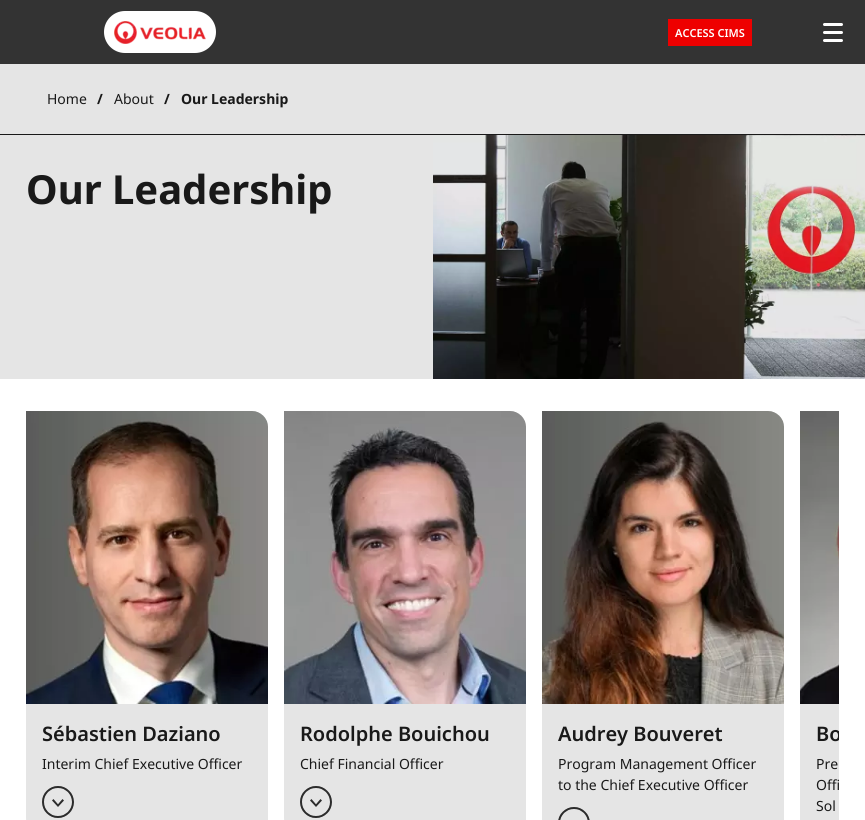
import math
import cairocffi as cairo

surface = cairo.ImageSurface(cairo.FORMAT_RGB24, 865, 820)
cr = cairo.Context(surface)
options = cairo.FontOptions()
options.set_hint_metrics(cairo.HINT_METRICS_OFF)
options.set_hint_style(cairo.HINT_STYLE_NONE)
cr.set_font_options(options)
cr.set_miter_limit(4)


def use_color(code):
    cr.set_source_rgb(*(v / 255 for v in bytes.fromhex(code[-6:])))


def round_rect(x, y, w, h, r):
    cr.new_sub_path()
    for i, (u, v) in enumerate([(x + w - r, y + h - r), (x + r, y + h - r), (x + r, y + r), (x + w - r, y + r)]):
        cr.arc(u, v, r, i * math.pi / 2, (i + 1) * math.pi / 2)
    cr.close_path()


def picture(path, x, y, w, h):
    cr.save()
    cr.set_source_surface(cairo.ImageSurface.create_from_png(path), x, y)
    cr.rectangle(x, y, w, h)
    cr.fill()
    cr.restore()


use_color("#ffffff")
cr.paint()
use_color("#333333")
cr.rectangle(0, 0, 865, 64)
cr.fill()
use_color("#ffffff")
round_rect(104, 11, 112, 42, 21)
cr.fill()
picture("img1.png", 114, 21, 92, 23)
use_color("#ee0000")
cr.rectangle(668, 19, 84, 27)
cr.fill()
cr.select_font_face("Noto Sans SemiBold")
cr.set_font_size(11)
use_color("#ffffff")
cr.move_to(675, 37)
cr.show_text("ACCESS CIMS")
round_rect(823, 39, 20, 3, 1.5)
cr.fill()
round_rect(823, 23, 20, 3, 1.5)
cr.fill()
round_rect(823, 31, 20, 3, 1.5)
cr.fill()
use_color("#e5e5e5")
cr.rectangle(0, 64, 865, 315)
cr.fill()
cr.select_font_face("Noto Sans")
cr.set_font_size(14)
use_color("#191919")
cr.move_to(47, 104)
cr.show_text("Home")
cr.select_font_face("Noto Sans", cairo.FONT_SLANT_NORMAL, cairo.FONT_WEIGHT_BOLD)
cr.move_to(97, 104)
cr.show_text("/")
cr.select_font_face("Noto Sans")
cr.move_to(114, 104)
cr.show_text("About")
cr.select_font_face("Noto Sans", cairo.FONT_SLANT_NORMAL, cairo.FONT_WEIGHT_BOLD)
cr.move_to(164, 104)
cr.show_text("/")
cr.move_to(181, 104)
cr.show_text("Our Leadership")
cr.rectangle(0, 134, 865, 1)
cr.fill()
cr.set_font_size(40)
cr.move_to(26, 204)
cr.show_text("Our Leadership")
picture("img2.png", 433, 135, 432, 244)
use_color("#fcfcfc")
cr.new_path()
cr.move_to(26, 411)
cr.line_to(252, 411)
cr.curve_to(261, 411, 268, 418, 268, 427)
cr.line_to(268, 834)
cr.line_to(42, 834)
cr.curve_to(33, 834, 26, 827, 26, 818)
cr.close_path()
cr.fill()
picture("img3.png", 26, 411, 242, 293)
use_color("#e5e5e5")
cr.new_path()
cr.move_to(26, 704)
cr.line_to(268, 704)
cr.line_to(268, 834)
cr.line_to(42, 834)
cr.curve_to(33, 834, 26, 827, 26, 818)
cr.close_path()
cr.fill()
cr.select_font_face("Noto Sans SemiBold")
cr.set_font_size(20)
use_color("#191919")
cr.move_to(42, 741)
cr.show_text("Sébastien Daziano")
cr.select_font_face("Noto Sans")
cr.set_font_size(14)
cr.move_to(42, 769)
cr.show_text("Interim Chief Executive Officer")
picture("img4.png", 42, 786, 32, 32)
use_color("#fcfcfc")
cr.new_path()
cr.move_to(284, 411)
cr.line_to(510, 411)
cr.curve_to(519, 411, 526, 418, 526, 427)
cr.line_to(526, 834)
cr.line_to(300, 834)
cr.curve_to(291, 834, 284, 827, 284, 818)
cr.close_path()
cr.fill()
picture("img5.png", 284, 411, 242, 293)
use_color("#e5e5e5")
cr.new_path()
cr.move_to(284, 704)
cr.line_to(526, 704)
cr.line_to(526, 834)
cr.line_to(300, 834)
cr.curve_to(291, 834, 284, 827, 284, 818)
cr.close_path()
cr.fill()
cr.select_font_face("Noto Sans SemiBold")
cr.set_font_size(20)
use_color("#191919")
cr.move_to(300, 741)
cr.show_text("Rodolphe Bouichou")
cr.select_font_face("Noto Sans")
cr.set_font_size(14)
cr.move_to(300, 769)
cr.show_text("Chief Financial Officer")
picture("img4.png", 300, 786, 32, 32)
use_color("#fcfcfc")
cr.new_path()
cr.move_to(542, 411)
cr.line_to(768, 411)
cr.curve_to(777, 411, 784, 418, 784, 427)
cr.line_to(784, 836)
cr.line_to(558, 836)
cr.curve_to(549, 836, 542, 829, 542, 820)
cr.close_path()
cr.fill()
picture("img6.png", 542, 411, 242, 293)
use_color("#e5e5e5")
cr.rectangle(542, 704, 242, 116)
cr.fill()
cr.select_font_face("Noto Sans SemiBold")
cr.set_font_size(20)
use_color("#191919")
cr.move_to(558, 741)
cr.show_text("Audrey Bouveret")
cr.select_font_face("Noto Sans")
cr.set_font_size(14)
cr.move_to(558, 769)
cr.show_text("Program Management Officer")
cr.move_to(558, 790)
cr.show_text("to the Chief Executive Officer")
picture("img7.png", 558, 807, 32, 13)
picture("img8.png", 800, 411, 39, 293)
use_color("#e5e5e5")
cr.rectangle(800, 704, 39, 116)
cr.fill()
cr.save()
cr.rectangle(26, 411, 813, 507)
cr.clip()
cr.select_font_face("Noto Sans SemiBold")
cr.set_font_size(20)
use_color("#191919")
cr.move_to(816, 741)
cr.show_text("Bo")
cr.restore()
use_color("#191919")
cr.move_to(816, 769)
cr.show_text("Pre")
cr.move_to(816, 790)
cr.show_text("Offi")
cr.move_to(816, 811)
cr.show_text("Sol")
surface.write_to_png("result.png")
